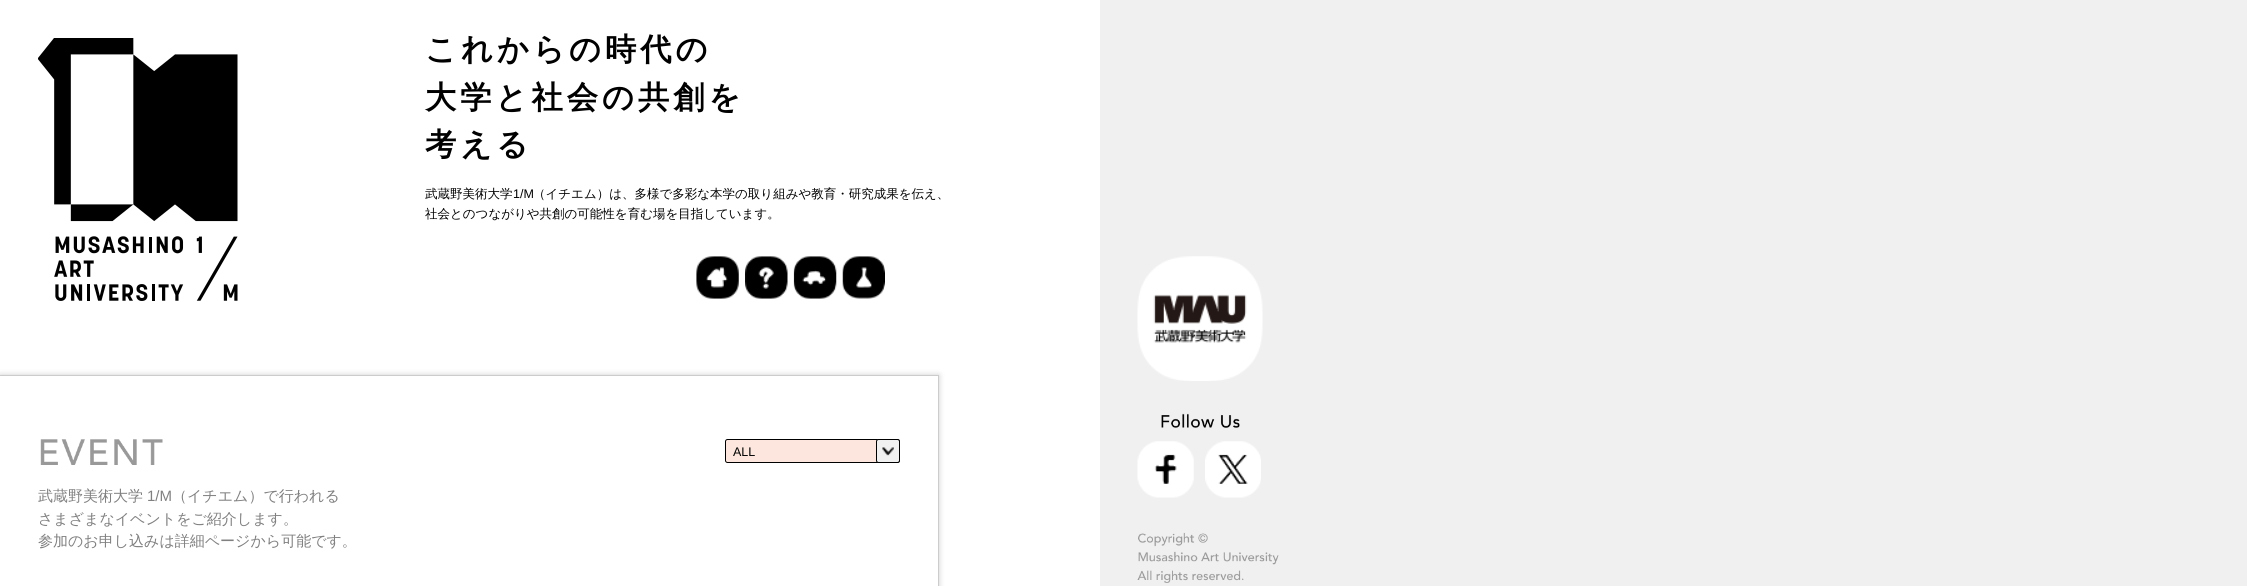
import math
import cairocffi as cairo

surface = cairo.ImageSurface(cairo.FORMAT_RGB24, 2247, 586)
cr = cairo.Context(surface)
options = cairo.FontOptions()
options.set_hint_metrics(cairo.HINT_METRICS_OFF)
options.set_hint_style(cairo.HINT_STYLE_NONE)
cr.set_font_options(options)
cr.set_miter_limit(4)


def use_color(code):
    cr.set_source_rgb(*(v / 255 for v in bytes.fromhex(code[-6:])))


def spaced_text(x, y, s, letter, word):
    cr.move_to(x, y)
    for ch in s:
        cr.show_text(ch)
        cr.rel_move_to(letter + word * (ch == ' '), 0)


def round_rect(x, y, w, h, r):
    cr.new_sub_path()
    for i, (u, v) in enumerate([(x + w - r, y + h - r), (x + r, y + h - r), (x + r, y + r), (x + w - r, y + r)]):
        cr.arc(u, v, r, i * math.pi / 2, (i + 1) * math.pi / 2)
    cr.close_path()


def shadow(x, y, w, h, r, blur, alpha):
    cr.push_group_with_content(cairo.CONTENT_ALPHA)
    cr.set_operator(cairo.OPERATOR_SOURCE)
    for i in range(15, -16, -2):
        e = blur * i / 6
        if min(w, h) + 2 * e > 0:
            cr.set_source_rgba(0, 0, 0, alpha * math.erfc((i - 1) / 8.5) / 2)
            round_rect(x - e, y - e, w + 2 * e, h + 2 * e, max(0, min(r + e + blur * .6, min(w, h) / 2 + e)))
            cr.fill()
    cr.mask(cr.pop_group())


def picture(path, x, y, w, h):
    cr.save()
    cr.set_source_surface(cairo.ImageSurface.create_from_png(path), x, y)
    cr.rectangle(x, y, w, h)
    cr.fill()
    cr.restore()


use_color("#f0f0f0")
cr.paint()
use_color("#ffffff")
cr.rectangle(0, 0, 1100, 586)
cr.fill()
picture("img1.png", 38, 38, 200, 263)
cr.select_font_face("WenQuanYi Zen Hei", cairo.FONT_SLANT_NORMAL, cairo.FONT_WEIGHT_BOLD)
cr.set_font_size(31.25)
use_color("#000000")
spaced_text(425, 60, "これからの時代の", 4, 0)
spaced_text(425, 108, "大学と社会の共創を", 4, 0)
spaced_text(425, 155, "考える", 4, 0)
cr.select_font_face("WenQuanYi Zen Hei Medium")
cr.set_font_size(12.5)
cr.move_to(425, 198)
cr.show_text("武蔵野美術大学")
cr.select_font_face("Liberation Sans")
cr.move_to(513, 198)
cr.show_text("1/M")
cr.select_font_face("WenQuanYi Zen Hei Medium")
cr.move_to(533, 198)
cr.show_text("（イチエム）は、多様で多彩な本学の取り組みや教育・研究成果を伝え、")
cr.move_to(425, 218)
cr.show_text("社会とのつながりや共創の可能性を育む場を目指しています。")
picture("img2.png", 696, 256, 43, 43)
picture("img3.png", 745, 256, 43, 43)
picture("img4.png", 793, 256, 44, 43)
picture("img5.png", 842, 256, 43, 43)
use_color("#000000")
shadow(0, 375, 939, 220, 0, 3, 0.2)
use_color("#ffffff")
cr.rectangle(0, 376, 938, 210)
cr.fill()
use_color("#cccccc")
cr.rectangle(0, 375, 939, 1)
cr.fill()
cr.rectangle(938, 375, 1, 211)
cr.fill()
use_color("#fde6de")
round_rect(725.5, 439.5, 174, 23, 2)
cr.fill_preserve()
use_color("#000000")
cr.set_line_width(1)
cr.stroke()
cr.select_font_face("Liberation Sans")
cr.move_to(733, 456)
cr.show_text("ALL")
use_color("#f0f0f0")
round_rect(876.5, 439.5, 23, 23, 2)
cr.fill_preserve()
use_color("#000000")
cr.stroke()
picture("img6.png", 882, 447, 12, 9)
picture("img7.png", 40, 439, 123, 26)
cr.select_font_face("WenQuanYi Zen Hei Medium")
cr.set_font_size(15)
use_color("#808080")
cr.move_to(38, 501)
cr.show_text("武蔵野美術大学")
cr.select_font_face("Liberation Sans")
cr.move_to(147, 501)
cr.show_text("1/M")
cr.select_font_face("WenQuanYi Zen Hei Medium")
cr.move_to(172, 501)
cr.show_text("（イチエム）で行われる")
cr.move_to(38, 524)
cr.show_text("さまざまなイベントをご紹介します。")
cr.move_to(38, 546)
cr.show_text("参加のお申し込みは詳細ページから可能です。")
picture("img8.png", 1137, 256, 126, 125)
picture("img9.png", 1161, 413, 79, 15)
picture("img10.png", 1137, 441, 57, 57)
picture("img11.png", 1205, 441, 56, 57)
picture("img12.png", 1137, 532, 142, 51)
surface.write_to_png("result.png")
